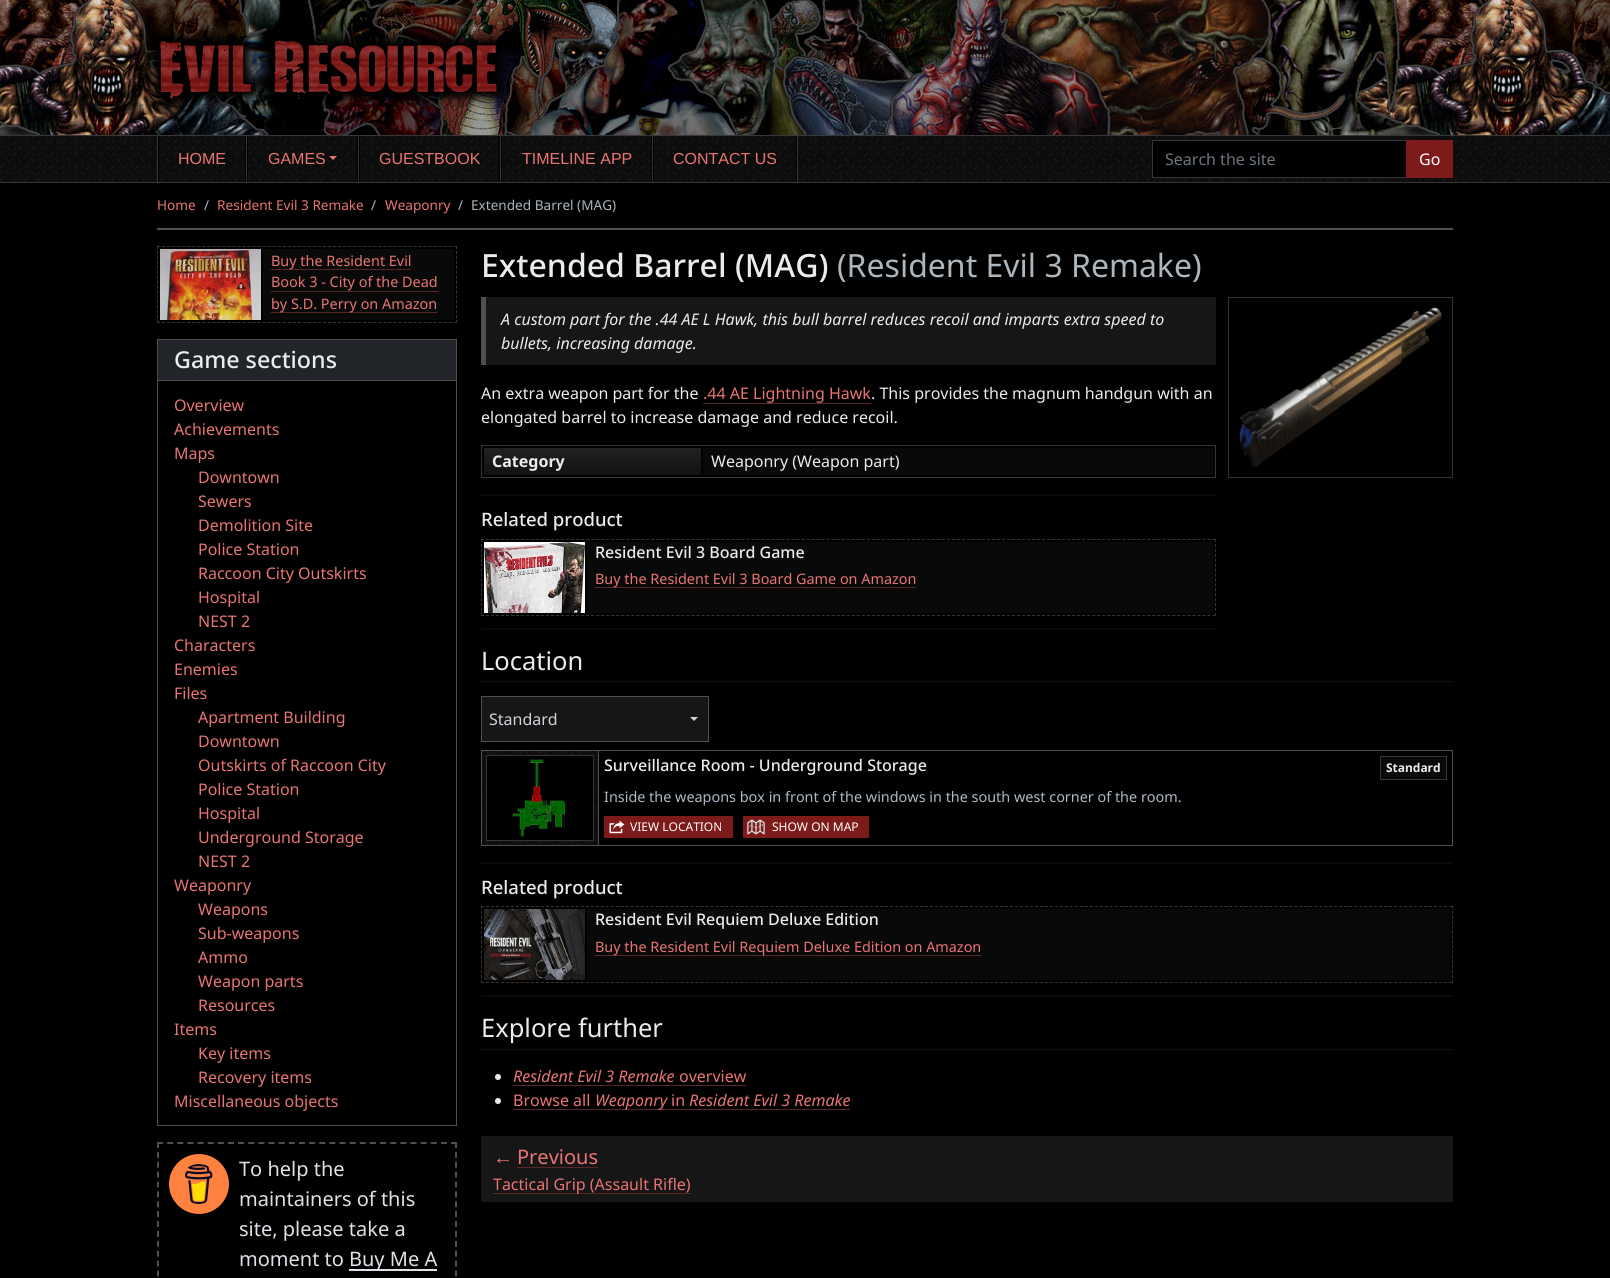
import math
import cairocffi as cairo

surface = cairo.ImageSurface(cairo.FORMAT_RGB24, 1610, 1278)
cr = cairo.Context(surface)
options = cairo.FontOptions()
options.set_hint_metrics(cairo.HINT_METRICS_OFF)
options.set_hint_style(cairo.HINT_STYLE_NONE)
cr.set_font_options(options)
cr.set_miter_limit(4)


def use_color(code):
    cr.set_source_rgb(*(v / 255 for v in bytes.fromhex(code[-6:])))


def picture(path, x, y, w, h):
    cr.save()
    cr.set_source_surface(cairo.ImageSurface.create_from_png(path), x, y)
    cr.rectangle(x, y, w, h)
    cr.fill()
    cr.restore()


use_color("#000000")
cr.paint()
picture("img1.png", 0, 0, 1610, 135)
picture("img2.png", 142, 27, 366, 95)
picture("img3.png", 0, 136, 1610, 46)
use_color("#363636")
cr.rectangle(0, 135, 1610, 1)
cr.fill()
cr.rectangle(0, 182, 1610, 1)
cr.fill()
cr.rectangle(246, 136, 1, 46)
cr.fill()
cr.rectangle(157, 136, 1, 46)
cr.fill()
use_color("#000000")
cr.rectangle(245, 136, 1, 46)
cr.fill()
cr.rectangle(158, 136, 1, 46)
cr.fill()
cr.select_font_face("Liberation Sans")
cr.set_font_size(16)
use_color("#e87573")
cr.move_to(178, 164)
cr.show_text("HOME")
use_color("#363636")
cr.rectangle(358, 136, 1, 46)
cr.fill()
use_color("#000000")
cr.rectangle(357, 136, 1, 46)
cr.fill()
cr.rectangle(247, 136, 1, 46)
cr.fill()
use_color("#e87573")
cr.move_to(268, 164)
cr.show_text("GAMES")
cr.new_path()
cr.move_to(329, 156)
cr.line_to(337, 156)
cr.line_to(333, 160)
cr.close_path()
cr.fill()
use_color("#363636")
cr.rectangle(500, 136, 1, 46)
cr.fill()
use_color("#000000")
cr.rectangle(499, 136, 1, 46)
cr.fill()
cr.rectangle(359, 136, 1, 46)
cr.fill()
use_color("#e87573")
cr.move_to(379, 164)
cr.show_text("GUESTBOOK")
use_color("#363636")
cr.rectangle(652, 136, 1, 46)
cr.fill()
use_color("#000000")
cr.rectangle(651, 136, 1, 46)
cr.fill()
cr.rectangle(501, 136, 1, 46)
cr.fill()
use_color("#e87573")
cr.move_to(522, 164)
cr.show_text("TIMELINE APP")
use_color("#363636")
cr.rectangle(797, 136, 1, 46)
cr.fill()
use_color("#000000")
cr.rectangle(796, 136, 1, 46)
cr.fill()
cr.rectangle(653, 136, 1, 46)
cr.fill()
use_color("#e87573")
cr.move_to(673, 164)
cr.show_text("CONTACT US")
use_color("#000000")
cr.rectangle(1152.5, 140.5, 254, 37)
cr.fill_preserve()
use_color("#363636")
cr.set_line_width(1)
cr.stroke()
cr.select_font_face("Noto Sans")
use_color("#6c757d")
cr.move_to(1165, 165)
cr.show_text("Search the site")
use_color("#7d1a1a")
cr.rectangle(1406, 140, 47, 38)
cr.fill()
use_color("#ffffff")
cr.move_to(1419, 165)
cr.show_text("Go")
use_color("#505050")
cr.rectangle(157, 228, 1296, 2)
cr.fill()
cr.set_font_size(13.6)
use_color("#e87573")
cr.move_to(157, 210)
cr.show_text("Home")
use_color("#adb5bd")
cr.move_to(204, 210)
cr.show_text("/")
use_color("#e87573")
cr.move_to(217, 210)
cr.show_text("Resident Evil 3 Remake")
use_color("#adb5bd")
cr.move_to(371, 210)
cr.show_text("/")
use_color("#e87573")
cr.move_to(385, 210)
cr.show_text("Weaponry")
use_color("#adb5bd")
cr.move_to(458, 210)
cr.show_text("/")
cr.move_to(471, 210)
cr.show_text("Extended Barrel (MAG)")
cr.new_path()
cr.move_to(157, 246.5)
cr.line_to(457, 246.5)
use_color("#363636")
cr.set_dash([3, 2.03])
cr.stroke()
cr.new_path()
cr.move_to(456.5, 246)
cr.line_to(456.5, 323)
cr.set_dash([3, 1.93])
cr.stroke()
cr.new_path()
cr.move_to(157, 322.5)
cr.line_to(457, 322.5)
cr.set_dash([3, 2.03])
cr.stroke()
cr.new_path()
cr.move_to(157.5, 246)
cr.line_to(157.5, 323)
cr.set_dash([3, 1.93])
cr.stroke()
picture("img4.png", 160, 249, 101, 71)
use_color("#090909")
cr.rectangle(263, 249, 191, 71)
cr.fill()
use_color("#582625")
cr.rectangle(271, 269, 140, 1)
cr.fill()
cr.set_font_size(14.4)
use_color("#e87573")
cr.move_to(271, 266)
cr.show_text("Buy the Resident Evil")
cr.move_to(271, 287)
cr.show_text("Book 3 - City of the Dead")
use_color("#582625")
cr.rectangle(271, 291, 167, 1)
cr.fill()
cr.rectangle(271, 312, 166, 1)
cr.fill()
use_color("#e87573")
cr.move_to(271, 309)
cr.show_text("by S.D. Perry on Amazon")
cr.rectangle(157.5, 339.5, 299, 786)
use_color("#505050")
cr.set_dash([])
cr.stroke()
use_color("#212529")
cr.rectangle(158, 340, 298, 40)
cr.fill()
cr.select_font_face("Noto Sans Medium")
cr.set_font_size(23.25)
use_color("#e9ecef")
cr.move_to(174, 368)
cr.show_text("Game sections")
use_color("#505050")
cr.rectangle(158, 380, 298, 1)
cr.fill()
cr.select_font_face("Noto Sans")
cr.set_font_size(16)
use_color("#e87573")
cr.move_to(174, 411)
cr.show_text("Overview")
cr.move_to(174, 435)
cr.show_text("Achievements")
cr.move_to(174, 459)
cr.show_text("Maps")
cr.move_to(198, 483)
cr.show_text("Downtown")
cr.move_to(198, 507)
cr.show_text("Sewers")
cr.move_to(198, 531)
cr.show_text("Demolition Site")
cr.move_to(198, 555)
cr.show_text("Police Station")
cr.move_to(198, 579)
cr.show_text("Raccoon City Outskirts")
cr.move_to(198, 603)
cr.show_text("Hospital")
cr.move_to(198, 627)
cr.show_text("NEST 2")
cr.move_to(174, 651)
cr.show_text("Characters")
cr.move_to(174, 675)
cr.show_text("Enemies")
cr.move_to(174, 699)
cr.show_text("Files")
cr.move_to(198, 723)
cr.show_text("Apartment Building")
cr.move_to(198, 747)
cr.show_text("Downtown")
cr.move_to(198, 771)
cr.show_text("Outskirts of Raccoon City")
cr.move_to(198, 795)
cr.show_text("Police Station")
cr.move_to(198, 819)
cr.show_text("Hospital")
cr.move_to(198, 843)
cr.show_text("Underground Storage")
cr.move_to(198, 867)
cr.show_text("NEST 2")
cr.move_to(174, 891)
cr.show_text("Weaponry")
cr.move_to(198, 915)
cr.show_text("Weapons")
cr.move_to(198, 939)
cr.show_text("Sub-weapons")
cr.move_to(198, 963)
cr.show_text("Ammo")
cr.move_to(198, 987)
cr.show_text("Weapon parts")
cr.move_to(198, 1011)
cr.show_text("Resources")
cr.move_to(174, 1035)
cr.show_text("Items")
cr.move_to(198, 1059)
cr.show_text("Key items")
cr.move_to(198, 1083)
cr.show_text("Recovery items")
cr.move_to(174, 1107)
cr.show_text("Miscellaneous objects")
cr.new_path()
cr.move_to(157, 1143)
cr.line_to(457, 1143)
use_color("#505050")
cr.set_line_width(2)
cr.set_dash([6, 4.14])
cr.stroke()
cr.new_path()
cr.move_to(456, 1142)
cr.line_to(456, 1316)
cr.set_dash([6, 3.88])
cr.stroke()
cr.new_path()
cr.move_to(158, 1142)
cr.line_to(158, 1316)
cr.stroke()
use_color("#ff813f")
cr.arc(199, 1184, 30, 0, 2 * math.pi)
cr.fill()
picture("img5.png", 185, 1164, 28, 40)
cr.set_font_size(20)
use_color("#dee2e6")
cr.move_to(239, 1176)
cr.show_text("To help the")
cr.move_to(239, 1206)
cr.show_text("maintainers of this")
cr.move_to(239, 1236)
cr.show_text("site, please take a")
cr.move_to(239, 1266)
cr.show_text("moment to")
cr.rectangle(349, 1269, 88, 2)
cr.fill()
cr.move_to(349, 1266)
cr.show_text("Buy Me A")
cr.select_font_face("Noto Sans Medium")
cr.set_font_size(32)
use_color("#e9ecef")
cr.move_to(481, 277)
cr.show_text("Extended Barrel (MAG)")
cr.select_font_face("Noto Sans")
use_color("#adb5bd")
cr.move_to(837, 277)
cr.show_text("(Resident Evil 3 Remake)")
use_color("#161616")
cr.rectangle(486, 297, 730, 68)
cr.fill()
use_color("#505050")
cr.rectangle(481, 297, 5, 68)
cr.fill()
cr.select_font_face("Noto Sans", cairo.FONT_SLANT_ITALIC)
cr.set_font_size(16)
use_color("#e9ecef")
cr.move_to(501, 325)
cr.show_text("A custom part for the .44 AE L Hawk, this bull barrel reduces recoil and imparts extra speed to")
cr.move_to(501, 349)
cr.show_text("bullets, increasing damage.")
cr.select_font_face("Noto Sans")
cr.move_to(481, 399)
cr.show_text("An extra weapon part for the")
use_color("#e87573")
cr.move_to(703, 399)
cr.show_text(".44 AE Lightning Hawk")
use_color("#582625")
cr.rectangle(703, 403, 168, 1)
cr.fill()
use_color("#e9ecef")
cr.move_to(871, 399)
cr.show_text(". This provides the magnum handgun with an")
cr.move_to(481, 423)
cr.show_text("elongated barrel to increase damage and reduce recoil.")
cr.rectangle(481.5, 445.5, 734, 32)
use_color("#363636")
cr.set_line_width(1)
cr.set_dash([])
cr.stroke()
gradient = cairo.LinearGradient(593, 448, 593, 475)
gradient.add_color_stop_rgba(0, 0.133, 0.133, 0.133, 1)
gradient.add_color_stop_rgba(1, 0.067, 0.067, 0.067, 1)
cr.set_source(gradient)
cr.rectangle(484, 448, 217, 27)
cr.fill()
cr.select_font_face("Noto Sans", cairo.FONT_SLANT_NORMAL, cairo.FONT_WEIGHT_BOLD)
use_color("#e9ecef")
cr.move_to(492, 467)
cr.show_text("Category")
use_color("#090909")
cr.rectangle(703, 448, 510, 27)
cr.fill()
cr.select_font_face("Noto Sans")
use_color("#e9ecef")
cr.move_to(711, 467)
cr.show_text("Weaponry (Weapon part)")
use_color("#090909")
cr.rectangle(481, 494, 735, 2)
cr.fill()
cr.rectangle(481, 628, 735, 2)
cr.fill()
cr.select_font_face("Noto Sans Medium")
cr.set_font_size(18.5)
use_color("#e9ecef")
cr.move_to(481, 526)
cr.show_text("Related product")
cr.new_path()
cr.move_to(481, 539.5)
cr.line_to(1216, 539.5)
use_color("#363636")
cr.set_dash([3, 2.01])
cr.stroke()
cr.new_path()
cr.move_to(1215.5, 539)
cr.line_to(1215.5, 616)
cr.set_dash([3, 1.93])
cr.stroke()
cr.new_path()
cr.move_to(481, 615.5)
cr.line_to(1216, 615.5)
cr.set_dash([3, 2.01])
cr.stroke()
cr.new_path()
cr.move_to(481.5, 539)
cr.line_to(481.5, 616)
cr.set_dash([3, 1.93])
cr.stroke()
picture("img6.png", 484, 542, 101, 71)
use_color("#090909")
cr.rectangle(587, 542, 626, 71)
cr.fill()
cr.set_font_size(16)
use_color("#e9ecef")
cr.move_to(595, 558)
cr.show_text("Resident Evil 3 Board Game")
use_color("#582625")
cr.rectangle(595, 587, 321, 1)
cr.fill()
cr.select_font_face("Noto Sans")
cr.set_font_size(14.4)
use_color("#e87573")
cr.move_to(595, 584)
cr.show_text("Buy the Resident Evil 3 Board Game on Amazon")
cr.rectangle(1228.5, 297.5, 224, 180)
use_color("#363636")
cr.set_dash([])
cr.stroke()
picture("img7.png", 1239, 307, 203, 161)
cr.new_path()
cr.move_to(481, 681.5)
cr.line_to(1453, 681.5)
use_color("#212529")
cr.set_dash([1, 1])
cr.stroke()
cr.set_font_size(25.5)
use_color("#e9ecef")
cr.move_to(481, 670)
cr.show_text("Location")
use_color("#161616")
cr.rectangle(481.5, 696.5, 227, 45)
cr.fill_preserve()
use_color("#505050")
cr.set_dash([])
cr.stroke()
cr.set_font_size(16)
use_color("#ced4da")
cr.move_to(489, 725)
cr.show_text("Standard")
cr.new_path()
cr.move_to(690, 717)
cr.line_to(698, 717)
cr.line_to(694, 721)
cr.close_path()
cr.fill()
use_color("#505050")
cr.rectangle(481, 750, 972, 1)
cr.fill()
cr.rectangle(481, 750, 1, 96)
cr.fill()
cr.rectangle(1452, 751, 1, 95)
cr.fill()
cr.rectangle(482, 845, 971, 1)
cr.fill()
picture("img8.png", 482, 751, 116, 94)
cr.rectangle(598, 751, 1, 94)
cr.fill()
cr.rectangle(486.5, 755.5, 107, 85)
use_color("#363636")
cr.stroke()
picture("img9.png", 487, 756, 106, 84)
cr.select_font_face("Noto Sans Medium")
use_color("#e9ecef")
cr.move_to(604, 771)
cr.show_text("Surveillance Room - Underground Storage")
use_color("#090909")
cr.rectangle(1380.5, 756.5, 66, 23)
cr.fill_preserve()
use_color("#363636")
cr.stroke()
cr.select_font_face("Noto Sans", cairo.FONT_SLANT_NORMAL, cairo.FONT_WEIGHT_BOLD)
cr.set_font_size(12)
use_color("#e9ecef")
cr.move_to(1386, 772)
cr.show_text("Standard")
cr.select_font_face("Noto Sans")
cr.set_font_size(14.4)
use_color("#aeb9c4")
cr.move_to(604, 802)
cr.show_text("Inside the weapons box in front of the windows in the south west corner of the room.")
use_color("#7d1a1a")
cr.rectangle(604, 816, 129, 22)
cr.fill()
picture("img10.png", 609, 820, 16, 14)
cr.set_font_size(12)
use_color("#ffffff")
cr.move_to(630, 831)
cr.show_text("VIEW LOCATION")
use_color("#7d1a1a")
cr.rectangle(743, 816, 126, 22)
cr.fill()
picture("img11.png", 747, 819, 18, 16)
use_color("#ffffff")
cr.move_to(772, 831)
cr.show_text("SHOW ON MAP")
use_color("#090909")
cr.rectangle(481, 862, 972, 2)
cr.fill()
cr.rectangle(481, 995, 972, 2)
cr.fill()
cr.select_font_face("Noto Sans Medium")
cr.set_font_size(18.5)
use_color("#e9ecef")
cr.move_to(481, 894)
cr.show_text("Related product")
cr.new_path()
cr.move_to(481, 906.5)
cr.line_to(1453, 906.5)
use_color("#363636")
cr.set_dash([3, 1.99])
cr.stroke()
cr.new_path()
cr.move_to(1452.5, 906)
cr.line_to(1452.5, 983)
cr.set_dash([3, 1.93])
cr.stroke()
cr.new_path()
cr.move_to(481, 982.5)
cr.line_to(1453, 982.5)
cr.set_dash([3, 1.99])
cr.stroke()
cr.new_path()
cr.move_to(481.5, 906)
cr.line_to(481.5, 983)
cr.set_dash([3, 1.93])
cr.stroke()
picture("img12.png", 484, 909, 101, 71)
use_color("#090909")
cr.rectangle(587, 909, 863, 71)
cr.fill()
cr.set_font_size(16)
use_color("#e9ecef")
cr.move_to(595, 925)
cr.show_text("Resident Evil Requiem Deluxe Edition")
use_color("#582625")
cr.rectangle(595, 955, 386, 1)
cr.fill()
cr.select_font_face("Noto Sans")
cr.set_font_size(14.4)
use_color("#e87573")
cr.move_to(595, 952)
cr.show_text("Buy the Resident Evil Requiem Deluxe Edition on Amazon")
cr.new_path()
cr.move_to(481, 1049.5)
cr.line_to(1453, 1049.5)
use_color("#212529")
cr.set_dash([1, 1])
cr.stroke()
cr.set_font_size(25.5)
use_color("#e9ecef")
cr.move_to(481, 1037)
cr.show_text("Explore further")
cr.new_path()
cr.arc(498, 1077, 3, 0, 2 * math.pi)
cr.fill()
cr.select_font_face("Noto Sans", cairo.FONT_SLANT_ITALIC)
cr.set_font_size(16)
use_color("#e87573")
cr.move_to(513, 1082)
cr.show_text("Resident Evil 3 Remake")
cr.select_font_face("Noto Sans")
cr.move_to(679, 1082)
cr.show_text("overview")
use_color("#582625")
cr.rectangle(513, 1085, 233, 1)
cr.fill()
use_color("#e9ecef")
cr.arc(498, 1101, 3, 0, 2 * math.pi)
cr.fill()
use_color("#e87573")
cr.move_to(513, 1106)
cr.show_text("Browse all")
use_color("#582625")
cr.rectangle(513, 1109, 154, 1)
cr.fill()
cr.select_font_face("Noto Sans", cairo.FONT_SLANT_ITALIC)
use_color("#e87573")
cr.move_to(595, 1106)
cr.show_text("Weaponry")
use_color("#582625")
cr.rectangle(667, 1109, 183, 1)
cr.fill()
cr.select_font_face("Noto Sans")
use_color("#e87573")
cr.move_to(671, 1106)
cr.show_text("in")
cr.select_font_face("Noto Sans", cairo.FONT_SLANT_ITALIC)
cr.move_to(689, 1106)
cr.show_text("Resident Evil 3 Remake")
use_color("#161616")
cr.rectangle(481, 1136, 972, 66)
cr.fill()
cr.select_font_face("Liberation Sans")
cr.set_font_size(20)
use_color("#e87573")
cr.move_to(493, 1164)
cr.show_text("←")
cr.select_font_face("Noto Sans")
cr.move_to(517, 1164)
cr.show_text("Previous")
use_color("#582625")
cr.rectangle(517, 1167, 81, 1)
cr.fill()
cr.rectangle(493, 1193, 198, 1)
cr.fill()
cr.set_font_size(16)
use_color("#e87573")
cr.move_to(493, 1190)
cr.show_text("Tactical Grip (Assault Rifle)")
surface.write_to_png("result.png")
